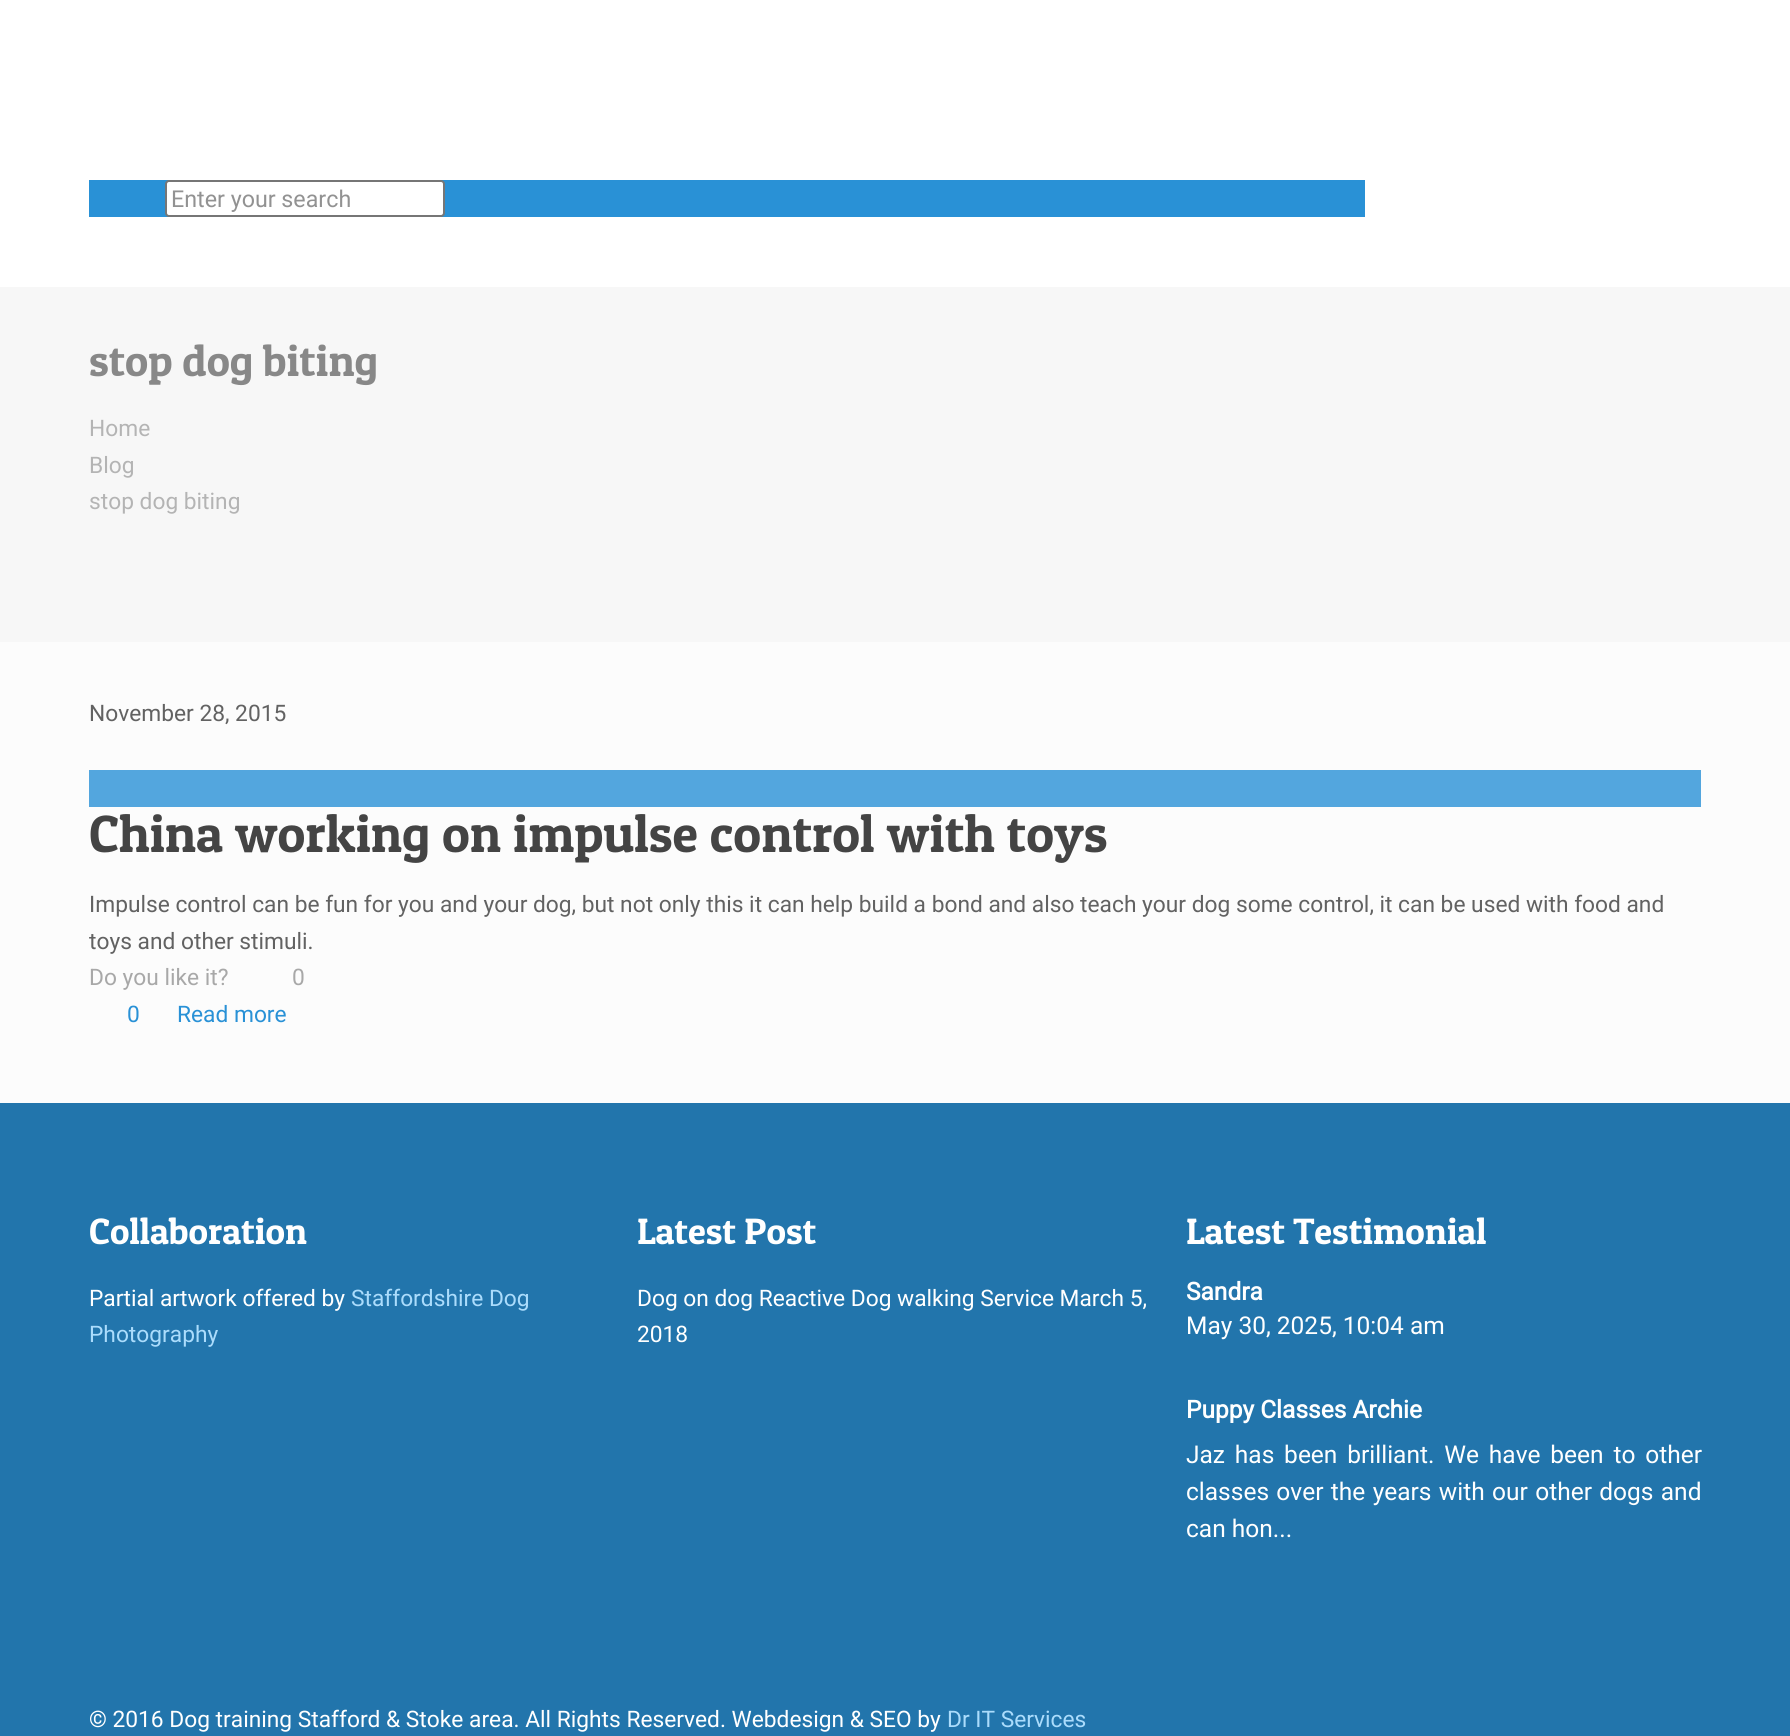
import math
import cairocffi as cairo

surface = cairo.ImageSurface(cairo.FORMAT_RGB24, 1790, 1736)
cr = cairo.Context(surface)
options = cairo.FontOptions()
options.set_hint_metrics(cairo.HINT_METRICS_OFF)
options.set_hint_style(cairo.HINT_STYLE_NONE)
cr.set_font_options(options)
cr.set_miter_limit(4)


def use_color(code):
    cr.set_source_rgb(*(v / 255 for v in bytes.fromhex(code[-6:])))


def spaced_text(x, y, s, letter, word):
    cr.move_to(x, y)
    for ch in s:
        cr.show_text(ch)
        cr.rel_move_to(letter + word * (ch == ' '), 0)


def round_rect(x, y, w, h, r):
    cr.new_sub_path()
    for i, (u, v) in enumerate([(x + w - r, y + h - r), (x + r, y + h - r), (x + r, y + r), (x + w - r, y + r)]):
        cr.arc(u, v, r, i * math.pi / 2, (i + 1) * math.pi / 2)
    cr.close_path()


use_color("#fcfcfc")
cr.paint()
use_color("#ffffff")
cr.rectangle(0, 0, 1790, 287)
cr.fill()
use_color("#2991d6")
cr.rectangle(89, 180, 1276, 37)
cr.fill()
use_color("#ffffff")
round_rect(166, 181, 278, 35, 3)
cr.fill_preserve()
use_color("#767676")
cr.stroke()
cr.select_font_face("Roboto")
cr.set_font_size(23.25)
use_color("#929292")
cr.move_to(171, 207)
cr.show_text("Enter your search")
use_color("#f7f7f7")
cr.rectangle(0, 287, 1790, 355)
cr.fill()
cr.select_font_face("Patua One")
cr.set_font_size(43.75)
use_color("#888888")
cr.move_to(89, 376)
cr.show_text("stop dog biting")
cr.select_font_face("Roboto")
cr.set_font_size(22.75)
use_color("#b4b4b4")
cr.move_to(89, 436)
cr.show_text("Home")
cr.move_to(89, 473)
cr.show_text("Blog")
cr.move_to(89, 509)
cr.show_text("stop dog biting")
use_color("#626262")
cr.move_to(89, 721)
cr.show_text("November 28, 2015")
use_color("#53a6de")
cr.rectangle(89, 770, 1612, 37)
cr.fill()
cr.select_font_face("Patua One")
cr.set_font_size(52.5)
use_color("#444444")
cr.move_to(89, 852)
cr.show_text("China working on impulse control with toys")
cr.select_font_face("Roboto")
cr.set_font_size(22.75)
use_color("#626262")
cr.move_to(89, 912)
cr.show_text("Impulse control can be fun for you and your dog, but not only this it can help build a bond and also teach your dog some control, it can be used with food and")
cr.move_to(89, 949)
cr.show_text("toys and other stimuli.")
use_color("#a8a8a8")
cr.move_to(89, 985)
cr.show_text("Do you like it?")
cr.move_to(292, 985)
cr.show_text("0")
use_color("#2991d6")
cr.move_to(127, 1022)
cr.show_text("0")
cr.move_to(177, 1022)
cr.show_text("Read more")
use_color("#2275ac")
cr.rectangle(0, 1103, 1790, 633)
cr.fill()
cr.select_font_face("Patua One")
cr.set_font_size(36.75)
use_color("#ffffff")
cr.move_to(89, 1244)
cr.show_text("Collaboration")
cr.select_font_face("Roboto")
cr.set_font_size(22.75)
cr.move_to(89, 1306)
cr.show_text("Partial artwork offered by")
use_color("#abdcfc")
cr.move_to(351, 1306)
cr.show_text("Staffordshire Dog")
cr.move_to(89, 1342)
cr.show_text("Photography")
cr.select_font_face("Patua One")
cr.set_font_size(36.75)
use_color("#ffffff")
cr.move_to(637, 1244)
cr.show_text("Latest Post")
cr.select_font_face("Roboto")
cr.set_font_size(22.75)
cr.move_to(637, 1306)
cr.show_text("Dog on dog Reactive Dog walking Service March 5,")
cr.move_to(637, 1342)
cr.show_text("2018")
cr.select_font_face("Patua One")
cr.set_font_size(36.75)
cr.move_to(1186, 1244)
cr.show_text("Latest Testimonial")
cr.select_font_face("Roboto", cairo.FONT_SLANT_NORMAL, cairo.FONT_WEIGHT_BOLD)
cr.set_font_size(24.5)
cr.move_to(1186, 1300)
cr.show_text("Sandra")
cr.select_font_face("Roboto")
cr.move_to(1186, 1334)
cr.show_text("May 30, 2025, 10:04 am")
cr.select_font_face("Roboto", cairo.FONT_SLANT_NORMAL, cairo.FONT_WEIGHT_BOLD)
cr.move_to(1186, 1418)
cr.show_text("Puppy Classes Archie")
cr.select_font_face("Roboto")
spaced_text(1186, 1463, "Jaz has been brilliant. We have been to other", 0, 3.75)
spaced_text(1186, 1500, "classes over the years with our other dogs and", 0, 1.25)
cr.move_to(1186, 1537)
cr.show_text("can hon...")
cr.set_font_size(22.75)
cr.move_to(89, 1727)
cr.show_text("© 2016 Dog training Stafford & Stoke area. All Rights Reserved. Webdesign & SEO by")
use_color("#abdcfc")
cr.move_to(947, 1727)
cr.show_text("Dr IT Services")
surface.write_to_png("result.png")
